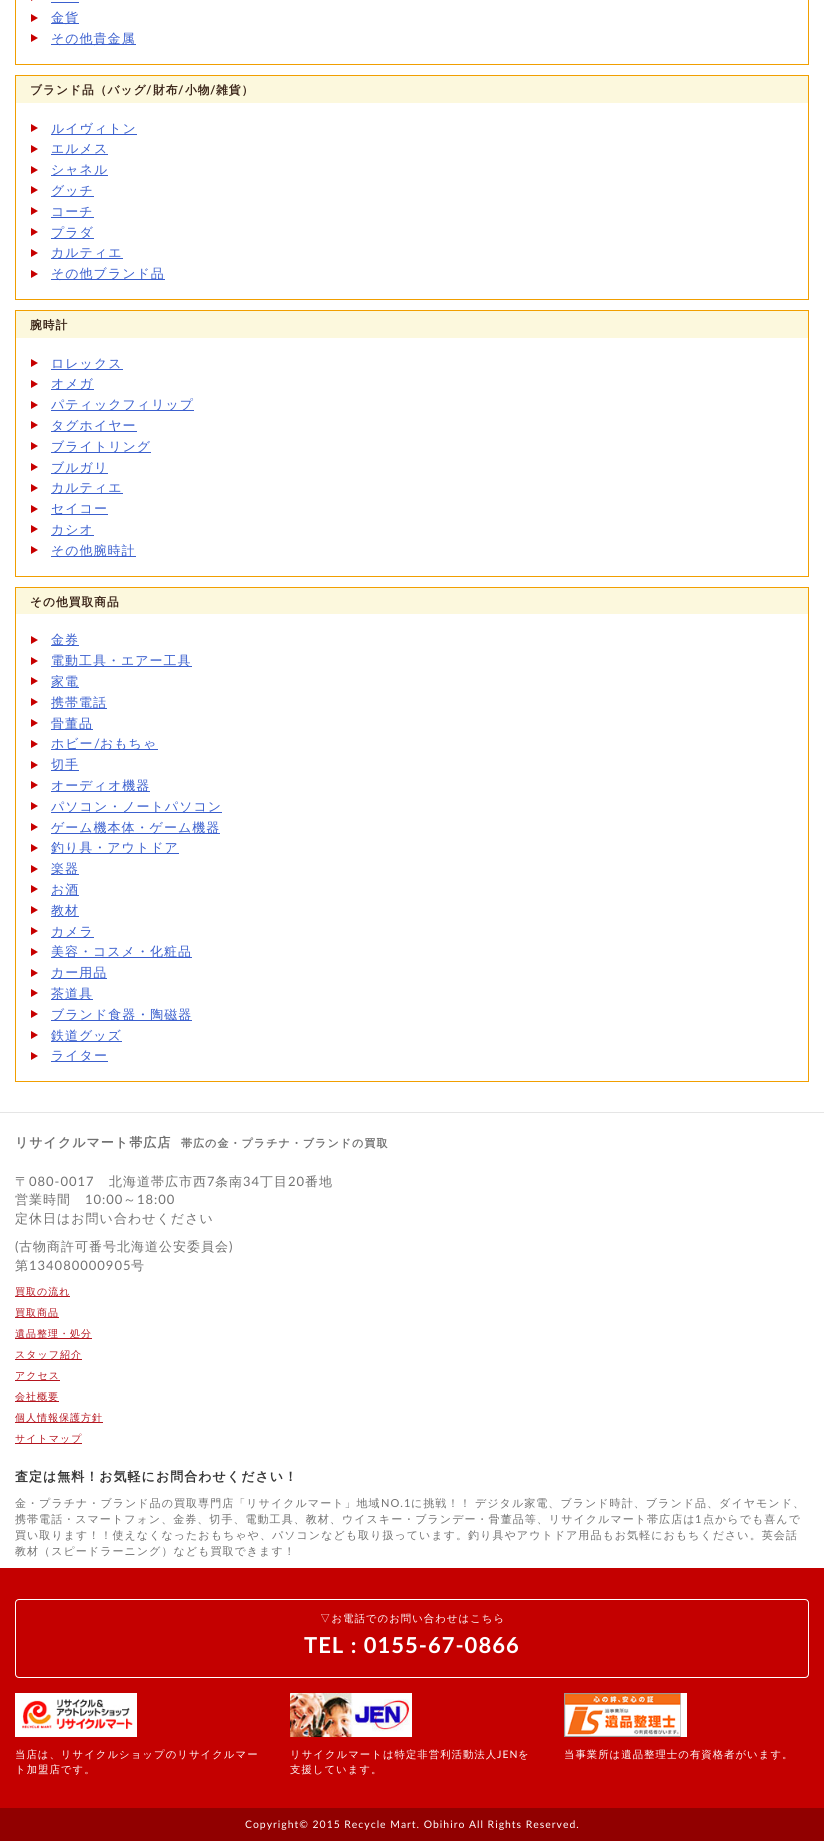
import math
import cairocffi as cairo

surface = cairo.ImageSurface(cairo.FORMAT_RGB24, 824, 1841)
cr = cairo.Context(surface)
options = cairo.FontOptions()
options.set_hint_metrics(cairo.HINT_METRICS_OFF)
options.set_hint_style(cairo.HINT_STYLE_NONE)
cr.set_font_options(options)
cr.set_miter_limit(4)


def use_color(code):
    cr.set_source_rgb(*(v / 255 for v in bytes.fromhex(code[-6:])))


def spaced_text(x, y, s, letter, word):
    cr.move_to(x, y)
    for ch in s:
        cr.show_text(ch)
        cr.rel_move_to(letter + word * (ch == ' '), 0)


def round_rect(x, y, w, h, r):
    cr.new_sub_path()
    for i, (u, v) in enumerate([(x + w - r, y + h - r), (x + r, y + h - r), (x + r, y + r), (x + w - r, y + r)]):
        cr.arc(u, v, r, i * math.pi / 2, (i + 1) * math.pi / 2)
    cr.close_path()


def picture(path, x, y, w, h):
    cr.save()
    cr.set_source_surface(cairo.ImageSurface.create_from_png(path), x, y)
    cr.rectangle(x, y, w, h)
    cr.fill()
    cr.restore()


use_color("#ffffff")
cr.paint()
cr.rectangle(15.5, -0.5, 793, 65)
use_color("#f19f00")
cr.set_line_width(1)
cr.stroke()
picture("img1.png", 31, 0, 2, 1)
use_color("#3a5fce")
cr.rectangle(51, 2, 28, 1)
cr.fill()
picture("img2.png", 31, 14, 7, 8)
cr.rectangle(51, 23, 28, 1)
cr.fill()
cr.select_font_face("WenQuanYi Zen Hei Medium")
cr.set_font_size(13)
spaced_text(51, 22, "金貨", 1, 0)
picture("img2.png", 31, 34, 7, 8)
cr.rectangle(51, 44, 85, 1)
cr.fill()
spaced_text(51, 43, "その他貴金属", 1, 0)
cr.rectangle(15.5, 75.5, 793, 224)
use_color("#f19f00")
cr.stroke()
use_color("#fcf8dd")
cr.rectangle(16, 76, 792, 27)
cr.fill()
cr.select_font_face("WenQuanYi Zen Hei", cairo.FONT_SLANT_NORMAL, cairo.FONT_WEIGHT_BOLD)
cr.set_font_size(11.75)
use_color("#3a2418")
spaced_text(30, 94, "ブランド品（バッグ", 1, 0)
cr.select_font_face("Lato", cairo.FONT_SLANT_NORMAL, cairo.FONT_WEIGHT_BOLD)
spaced_text(146, 94, "/", 1, 0)
cr.select_font_face("WenQuanYi Zen Hei", cairo.FONT_SLANT_NORMAL, cairo.FONT_WEIGHT_BOLD)
spaced_text(153, 94, "財布", 1, 0)
cr.select_font_face("Lato", cairo.FONT_SLANT_NORMAL, cairo.FONT_WEIGHT_BOLD)
spaced_text(178, 94, "/", 1, 0)
cr.select_font_face("WenQuanYi Zen Hei", cairo.FONT_SLANT_NORMAL, cairo.FONT_WEIGHT_BOLD)
spaced_text(185, 94, "小物", 1, 0)
cr.select_font_face("Lato", cairo.FONT_SLANT_NORMAL, cairo.FONT_WEIGHT_BOLD)
spaced_text(210, 94, "/", 1, 0)
cr.select_font_face("WenQuanYi Zen Hei", cairo.FONT_SLANT_NORMAL, cairo.FONT_WEIGHT_BOLD)
spaced_text(216, 94, "雑貨）", 1, 0)
picture("img2.png", 31, 124, 7, 8)
use_color("#3a5fce")
cr.rectangle(51, 134, 86, 1)
cr.fill()
cr.select_font_face("WenQuanYi Zen Hei Medium")
cr.set_font_size(13)
spaced_text(51, 133, "ルイヴィトン", 1, 0)
picture("img2.png", 31, 145, 7, 8)
spaced_text(51, 153, "エルメス", 1, 0)
cr.rectangle(51, 154, 57, 1)
cr.fill()
picture("img2.png", 31, 166, 7, 8)
cr.rectangle(51, 175, 57, 1)
cr.fill()
spaced_text(51, 174, "シャネル", 1, 0)
picture("img2.png", 31, 186, 7, 8)
cr.rectangle(51, 196, 43, 1)
cr.fill()
spaced_text(51, 195, "グッチ", 1, 0)
picture("img2.png", 31, 207, 7, 8)
cr.rectangle(51, 217, 43, 1)
cr.fill()
spaced_text(51, 216, "コーチ", 1, 0)
picture("img2.png", 31, 228, 7, 8)
cr.rectangle(51, 238, 43, 1)
cr.fill()
spaced_text(51, 237, "プラダ", 1, 0)
picture("img2.png", 31, 249, 7, 8)
cr.rectangle(51, 258, 72, 1)
cr.fill()
spaced_text(51, 257, "カルティエ", 1, 0)
picture("img2.png", 31, 270, 7, 8)
cr.rectangle(51, 279, 114, 1)
cr.fill()
spaced_text(51, 278, "その他ブランド品", 1, 0)
cr.rectangle(15.5, 310.5, 793, 266)
use_color("#f19f00")
cr.stroke()
use_color("#fcf8dd")
cr.rectangle(16, 311, 792, 27)
cr.fill()
cr.select_font_face("WenQuanYi Zen Hei", cairo.FONT_SLANT_NORMAL, cairo.FONT_WEIGHT_BOLD)
cr.set_font_size(11.75)
use_color("#3a2418")
spaced_text(30, 329, "腕時計", 1, 0)
picture("img2.png", 31, 359, 7, 8)
use_color("#3a5fce")
cr.rectangle(51, 369, 72, 1)
cr.fill()
cr.select_font_face("WenQuanYi Zen Hei Medium")
cr.set_font_size(13)
spaced_text(51, 368, "ロレックス", 1, 0)
picture("img2.png", 31, 380, 7, 8)
cr.rectangle(51, 389, 43, 1)
cr.fill()
spaced_text(51, 388, "オメガ", 1, 0)
picture("img2.png", 31, 401, 7, 8)
cr.rectangle(51, 410, 143, 1)
cr.fill()
spaced_text(51, 409, "パティックフィリップ", 1, 0)
picture("img2.png", 31, 421, 7, 8)
cr.rectangle(51, 431, 86, 1)
cr.fill()
spaced_text(51, 430, "タグホイヤー", 1, 0)
picture("img2.png", 31, 442, 7, 8)
cr.rectangle(51, 452, 100, 1)
cr.fill()
spaced_text(51, 451, "ブライトリング", 1, 0)
picture("img2.png", 31, 463, 7, 8)
cr.rectangle(51, 473, 57, 1)
cr.fill()
spaced_text(51, 472, "ブルガリ", 1, 0)
picture("img2.png", 31, 484, 7, 8)
cr.rectangle(51, 493, 72, 1)
cr.fill()
spaced_text(51, 492, "カルティエ", 1, 0)
picture("img2.png", 31, 505, 7, 8)
cr.rectangle(51, 514, 57, 1)
cr.fill()
spaced_text(51, 513, "セイコー", 1, 0)
picture("img2.png", 31, 525, 7, 8)
cr.rectangle(51, 535, 43, 1)
cr.fill()
spaced_text(51, 534, "カシオ", 1, 0)
picture("img2.png", 31, 546, 7, 8)
cr.rectangle(51, 556, 85, 1)
cr.fill()
spaced_text(51, 555, "その他腕時計", 1, 0)
cr.rectangle(15.5, 587.5, 793, 494)
use_color("#f19f00")
cr.stroke()
use_color("#fcf8dd")
cr.rectangle(16, 588, 792, 26)
cr.fill()
cr.select_font_face("WenQuanYi Zen Hei", cairo.FONT_SLANT_NORMAL, cairo.FONT_WEIGHT_BOLD)
cr.set_font_size(11.75)
use_color("#3a2418")
spaced_text(30, 606, "その他買取商品", 1, 0)
picture("img2.png", 31, 636, 7, 8)
use_color("#3a5fce")
cr.rectangle(51, 645, 28, 1)
cr.fill()
cr.select_font_face("WenQuanYi Zen Hei Medium")
cr.set_font_size(13)
spaced_text(51, 644, "金券", 1, 0)
picture("img2.png", 31, 657, 7, 8)
cr.rectangle(51, 666, 141, 1)
cr.fill()
spaced_text(51, 665, "電動工具・エアー工具", 1, 0)
picture("img2.png", 31, 677, 7, 8)
cr.rectangle(51, 687, 28, 1)
cr.fill()
spaced_text(51, 686, "家電", 1, 0)
picture("img2.png", 31, 698, 7, 8)
cr.rectangle(51, 708, 56, 1)
cr.fill()
spaced_text(51, 707, "携帯電話", 1, 0)
picture("img2.png", 31, 719, 7, 8)
cr.rectangle(51, 729, 42, 1)
cr.fill()
spaced_text(51, 728, "骨董品", 1, 0)
picture("img2.png", 31, 740, 7, 8)
cr.rectangle(51, 749, 107, 1)
cr.fill()
spaced_text(51, 748, "ホビー", 1, 0)
cr.select_font_face("Lato")
spaced_text(94, 748, "/", 1, 0)
cr.select_font_face("WenQuanYi Zen Hei Medium")
spaced_text(100, 748, "おもちゃ", 1, 0)
picture("img2.png", 31, 761, 7, 8)
cr.rectangle(51, 770, 28, 1)
cr.fill()
spaced_text(51, 769, "切手", 1, 0)
picture("img2.png", 31, 781, 7, 8)
cr.rectangle(51, 791, 99, 1)
cr.fill()
spaced_text(51, 790, "オーディオ機器", 1, 0)
picture("img2.png", 31, 802, 7, 8)
cr.rectangle(51, 812, 171, 1)
cr.fill()
spaced_text(51, 811, "パソコン・ノートパソコン", 1, 0)
picture("img2.png", 31, 823, 7, 8)
cr.rectangle(51, 833, 169, 1)
cr.fill()
spaced_text(51, 832, "ゲーム機本体・ゲーム機器", 1, 0)
picture("img2.png", 31, 844, 7, 8)
cr.rectangle(51, 853, 128, 1)
cr.fill()
spaced_text(51, 852, "釣り具・アウトドア", 1, 0)
picture("img2.png", 31, 865, 7, 8)
cr.rectangle(51, 874, 28, 1)
cr.fill()
spaced_text(51, 873, "楽器", 1, 0)
picture("img2.png", 31, 885, 7, 8)
cr.rectangle(51, 895, 28, 1)
cr.fill()
spaced_text(51, 894, "お酒", 1, 0)
picture("img2.png", 31, 906, 7, 8)
cr.rectangle(51, 916, 28, 1)
cr.fill()
spaced_text(51, 915, "教材", 1, 0)
picture("img2.png", 31, 927, 7, 8)
cr.rectangle(51, 937, 43, 1)
cr.fill()
spaced_text(51, 936, "カメラ", 1, 0)
picture("img2.png", 31, 948, 7, 8)
cr.rectangle(51, 957, 141, 1)
cr.fill()
spaced_text(51, 956, "美容・コスメ・化粧品", 1, 0)
picture("img2.png", 31, 969, 7, 8)
cr.rectangle(51, 978, 56, 1)
cr.fill()
spaced_text(51, 977, "カー用品", 1, 0)
picture("img2.png", 31, 989, 7, 8)
cr.rectangle(51, 999, 42, 1)
cr.fill()
spaced_text(51, 998, "茶道具", 1, 0)
picture("img2.png", 31, 1010, 7, 8)
cr.rectangle(51, 1020, 141, 1)
cr.fill()
spaced_text(51, 1019, "ブランド食器・陶磁器", 1, 0)
picture("img2.png", 31, 1031, 7, 8)
cr.rectangle(51, 1041, 71, 1)
cr.fill()
spaced_text(51, 1040, "鉄道グッズ", 1, 0)
picture("img2.png", 31, 1052, 7, 8)
cr.rectangle(51, 1061, 57, 1)
cr.fill()
spaced_text(51, 1060, "ライター", 1, 0)
use_color("#e5e5e5")
cr.rectangle(0, 1112, 824, 1)
cr.fill()
cr.select_font_face("WenQuanYi Zen Hei", cairo.FONT_SLANT_NORMAL, cairo.FONT_WEIGHT_BOLD)
use_color("#717171")
spaced_text(15, 1147, "リサイクルマート帯広店", 1, 0)
cr.set_font_size(11.05)
spaced_text(181, 1147, "帯広の金・プラチナ・ブランドの買取", 1, 0)
cr.select_font_face("WenQuanYi Zen Hei Medium")
cr.set_font_size(13)
spaced_text(15, 1186, "〒", 1, 0)
cr.select_font_face("Lato")
spaced_text(29, 1186, "080-0017", 1, 0)
cr.select_font_face("WenQuanYi Zen Hei Medium")
spaced_text(109, 1186, "北海道帯広市西", 1, 0)
cr.select_font_face("Lato")
spaced_text(207, 1186, "7", 1, 0)
cr.select_font_face("WenQuanYi Zen Hei Medium")
spaced_text(215, 1186, "条南", 1, 0)
cr.select_font_face("Lato")
spaced_text(243, 1186, "34", 1, 0)
cr.select_font_face("WenQuanYi Zen Hei Medium")
spaced_text(260, 1186, "丁目", 1, 0)
cr.select_font_face("Lato")
spaced_text(288, 1186, "20", 1, 0)
cr.select_font_face("WenQuanYi Zen Hei Medium")
spaced_text(305, 1186, "番地", 1, 0)
spaced_text(15, 1204, "営業時間", 1, 0)
cr.select_font_face("Lato")
spaced_text(85, 1204, "10:00", 1, 0)
cr.select_font_face("WenQuanYi Zen Hei Medium")
spaced_text(123, 1204, "～", 1, 0)
cr.select_font_face("Lato")
spaced_text(137, 1204, "18:00", 1, 0)
cr.select_font_face("WenQuanYi Zen Hei Medium")
spaced_text(15, 1223, "定休日はお問い合わせください", 1, 0)
cr.select_font_face("Lato")
spaced_text(15, 1251, "(", 1, 0)
cr.select_font_face("WenQuanYi Zen Hei Medium")
spaced_text(19, 1251, "古物商許可番号北海道公安委員会", 1, 0)
cr.select_font_face("Lato")
spaced_text(229, 1251, ")", 1, 0)
cr.select_font_face("WenQuanYi Zen Hei Medium")
spaced_text(15, 1270, "第", 1, 0)
cr.select_font_face("Lato")
spaced_text(29, 1270, "134080000905", 1, 0)
cr.select_font_face("WenQuanYi Zen Hei Medium")
spaced_text(131, 1270, "号", 1, 0)
use_color("#b5151f")
cr.rectangle(15, 1296, 55, 1)
cr.fill()
cr.set_font_size(10)
spaced_text(15, 1295, "買取の流れ", 1, 0)
cr.rectangle(15, 1317, 44, 1)
cr.fill()
spaced_text(15, 1316, "買取商品", 1, 0)
cr.rectangle(15, 1338, 77, 1)
cr.fill()
spaced_text(15, 1337, "遺品整理・処分", 1, 0)
cr.rectangle(15, 1359, 67, 1)
cr.fill()
spaced_text(15, 1358, "スタッフ紹介", 1, 0)
cr.rectangle(15, 1380, 45, 1)
cr.fill()
spaced_text(15, 1379, "アクセス", 1, 0)
cr.rectangle(15, 1401, 44, 1)
cr.fill()
spaced_text(15, 1400, "会社概要", 1, 0)
cr.rectangle(15, 1422, 88, 1)
cr.fill()
spaced_text(15, 1421, "個人情報保護方針", 1, 0)
cr.rectangle(15, 1443, 67, 1)
cr.fill()
spaced_text(15, 1442, "サイトマップ", 1, 0)
cr.select_font_face("WenQuanYi Zen Hei", cairo.FONT_SLANT_NORMAL, cairo.FONT_WEIGHT_BOLD)
cr.set_font_size(13)
use_color("#363636")
spaced_text(15, 1481, "査定は無料！お気軽にお問合わせください！", 1, 0)
cr.select_font_face("WenQuanYi Zen Hei Medium")
cr.set_font_size(11.05)
use_color("#717171")
spaced_text(15, 1507, "金・プラチナ・ブランド品の買取専門店「リサイクルマート」地域", 1, 0)
cr.select_font_face("Lato")
spaced_text(381, 1507, "NO.1", 1, 0)
cr.select_font_face("WenQuanYi Zen Hei Medium")
spaced_text(411, 1507, "に挑戦！！", 1, 0)
spaced_text(475, 1507, "デジタル家電、ブランド時計、ブランド品、ダイヤモンド、", 1, 0)
spaced_text(15, 1523, "携帯電話・スマートフォン、金券、切手、電動工具、教材、ウイスキー・ブランデー・骨董品等、リサイクルマート帯広店は", 1, 0)
cr.select_font_face("Lato")
spaced_text(695, 1523, "1", 1, 0)
cr.select_font_face("WenQuanYi Zen Hei Medium")
spaced_text(703, 1523, "点からでも喜んで", 1, 0)
spaced_text(15, 1539, "買い取ります！！使えなくなったおもちゃや、パソコンなども取り扱っています。釣り具やアウトドア用品もお気軽におもちください。英会話", 1, 0)
spaced_text(15, 1555, "教材（スピードラーニング）なども買取できます！", 1, 0)
use_color("#c40000")
cr.rectangle(0, 1568, 824, 240)
cr.fill()
round_rect(15.5, 1599.5, 793, 78, 3.5)
use_color("#ffffff")
cr.stroke()
cr.set_font_size(10.4)
spaced_text(320, 1622, "▽お電話でのお問い合わせはこちら", 1, 0)
cr.select_font_face("Lato", cairo.FONT_SLANT_NORMAL, cairo.FONT_WEIGHT_BOLD)
cr.set_font_size(22)
spaced_text(304, 1653, "TEL : 0155-67-0866", 1, 0)
picture("img3.png", 15, 1693, 122, 44)
cr.select_font_face("WenQuanYi Zen Hei Medium")
cr.set_font_size(10.4)
spaced_text(15, 1758, "当店は、リサイクルショップのリサイクルマー", 1, 0)
spaced_text(15, 1773, "ト加盟店です。", 1, 0)
picture("img4.png", 290, 1693, 122, 44)
spaced_text(290, 1758, "リサイクルマートは特定非営利活動法人", 1, 0)
cr.select_font_face("Lato")
spaced_text(497, 1758, "JEN", 1, 0)
cr.select_font_face("WenQuanYi Zen Hei Medium")
spaced_text(518, 1758, "を", 1, 0)
spaced_text(290, 1773, "支援しています。", 1, 0)
picture("img5.png", 564, 1693, 123, 44)
spaced_text(564, 1758, "当事業所は遺品整理士の有資格者がいます。", 1, 0)
use_color("#910000")
cr.rectangle(0, 1808, 824, 33)
cr.fill()
cr.select_font_face("Lato")
use_color("#ffffff")
spaced_text(245, 1828, "Copyright© 2015 Recycle Mart. Obihiro All Rights Reserved.", 1, 0)
surface.write_to_png("result.png")
